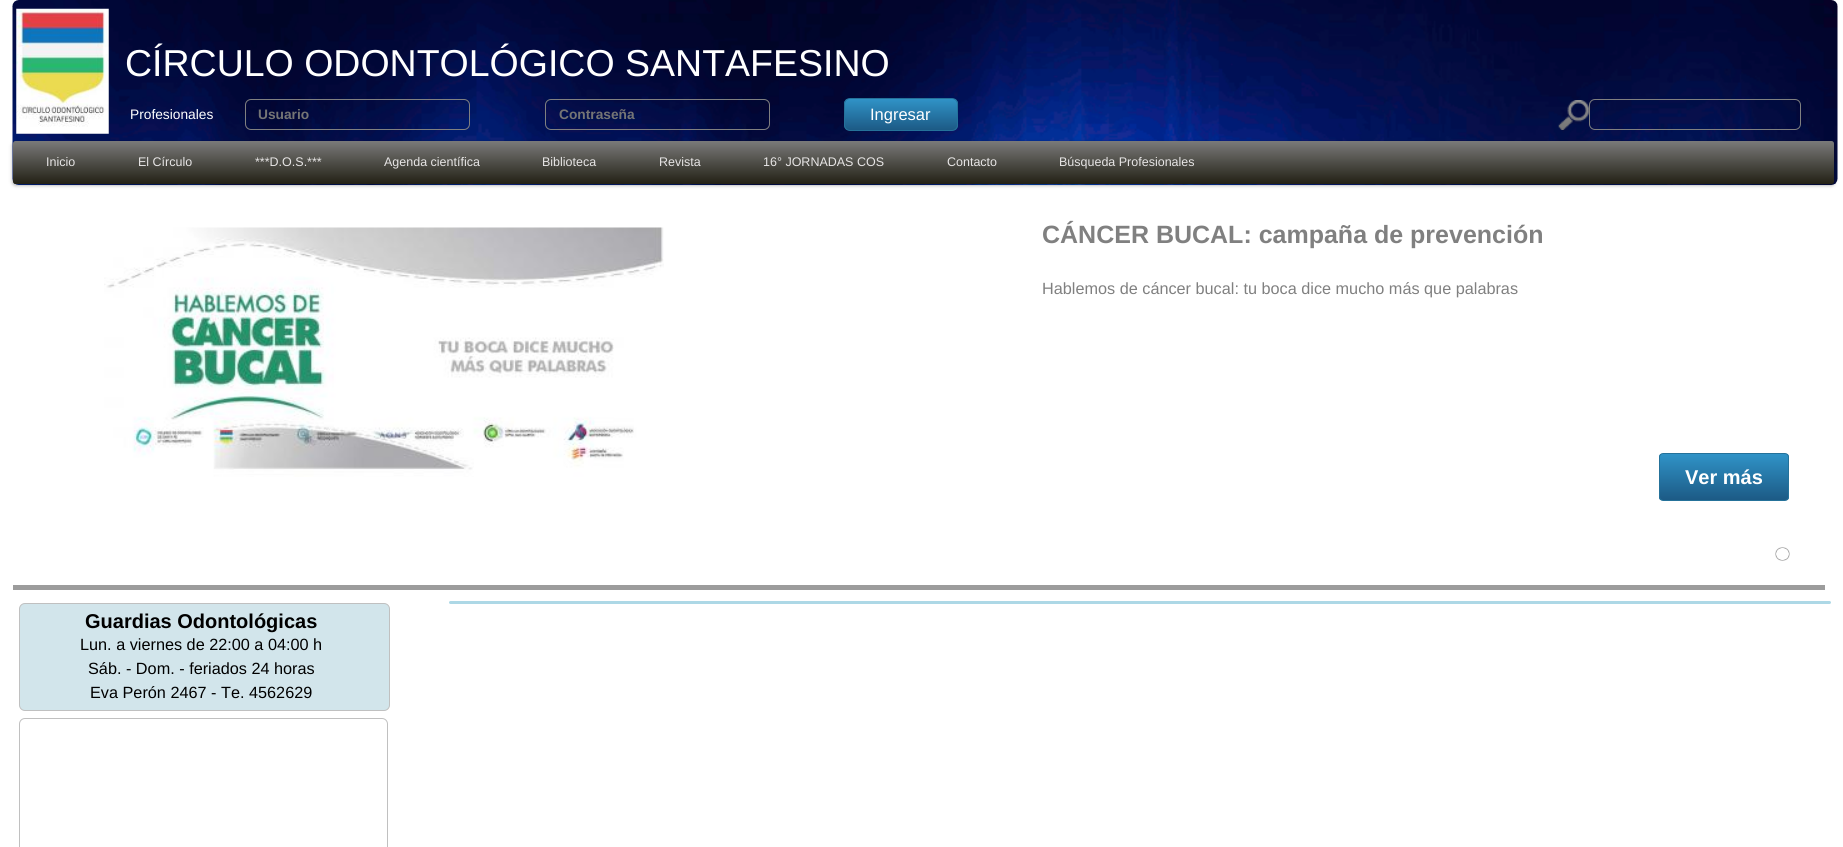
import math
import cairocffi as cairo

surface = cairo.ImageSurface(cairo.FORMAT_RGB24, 1843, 847)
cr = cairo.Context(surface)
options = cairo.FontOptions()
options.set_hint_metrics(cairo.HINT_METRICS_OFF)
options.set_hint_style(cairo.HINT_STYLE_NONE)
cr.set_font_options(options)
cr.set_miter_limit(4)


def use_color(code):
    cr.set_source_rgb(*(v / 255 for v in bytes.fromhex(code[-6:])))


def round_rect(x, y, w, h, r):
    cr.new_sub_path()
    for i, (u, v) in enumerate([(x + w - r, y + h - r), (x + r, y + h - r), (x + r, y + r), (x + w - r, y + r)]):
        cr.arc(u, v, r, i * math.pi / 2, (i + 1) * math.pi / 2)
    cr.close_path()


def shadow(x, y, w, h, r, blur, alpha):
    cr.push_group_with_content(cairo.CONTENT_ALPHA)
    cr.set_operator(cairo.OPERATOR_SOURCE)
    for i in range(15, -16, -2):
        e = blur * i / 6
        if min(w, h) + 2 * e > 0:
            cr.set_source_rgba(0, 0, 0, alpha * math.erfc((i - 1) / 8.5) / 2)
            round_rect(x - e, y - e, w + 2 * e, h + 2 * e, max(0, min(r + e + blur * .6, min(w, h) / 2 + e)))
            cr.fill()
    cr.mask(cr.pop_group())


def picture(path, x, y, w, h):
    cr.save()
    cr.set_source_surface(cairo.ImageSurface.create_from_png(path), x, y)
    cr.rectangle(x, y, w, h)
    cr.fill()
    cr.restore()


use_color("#ffffff")
cr.paint()
picture("img1.png", 12, 0, 1826, 185)
picture("img2.png", 16, 8, 93, 126)
cr.select_font_face("Liberation Sans")
cr.set_font_size(37.5)
use_color("#ffffff")
cr.move_to(125, 76)
cr.show_text("CÍRCULO ODONTOLÓGICO SANTAFESINO")
cr.set_font_size(13.75)
cr.move_to(130, 119)
cr.show_text("Profesionales")
round_rect(245.5, 99.5, 224, 30, 5.5)
use_color("#808080")
cr.set_line_width(1)
cr.stroke()
cr.select_font_face("Liberation Sans", cairo.FONT_SLANT_NORMAL, cairo.FONT_WEIGHT_BOLD)
use_color("#757575")
cr.move_to(258, 119)
cr.show_text("Usuario")
round_rect(545.5, 99.5, 224, 30, 5.5)
use_color("#808080")
cr.stroke()
use_color("#757575")
cr.move_to(559, 119)
cr.show_text("Contraseña")
cr.save()
round_rect(844, 98, 114, 33, 6)
cr.clip()
gradient = cairo.LinearGradient(901, 99, 901, 130)
gradient.add_color_stop_rgba(0, 0.188, 0.576, 0.78, 1)
gradient.add_color_stop_rgba(1, 0.11, 0.353, 0.522, 1)
cr.set_source(gradient)
cr.rectangle(844, 99, 114, 31)
cr.fill()
cr.restore()
round_rect(844.5, 98.5, 113, 32, 5.5)
use_color("#25729a")
cr.stroke()
cr.select_font_face("Liberation Sans")
cr.set_font_size(16.5)
use_color("#ffffff")
cr.move_to(870, 120)
cr.show_text("Ingresar")
picture("img3.png", 1558, 100, 31, 30)
round_rect(1589.5, 99.5, 211, 30, 5.5)
use_color("#808080")
cr.stroke()
use_color("#000000")
shadow(13, 143, 1821, 42, 2.5, 2, 0.4)
gradient = cairo.LinearGradient(13, 141, 13, 184)
gradient.add_color_stop_rgba(0, 0.478, 0.478, 0.478, 1)
gradient.add_color_stop_rgba(1, 0.137, 0.129, 0.082, 1)
cr.set_source(gradient)
round_rect(13, 141, 1821, 43, 2.5)
cr.fill()
cr.set_font_size(12.5)
use_color("#e7e5e5")
cr.move_to(46, 166)
cr.show_text("Inicio")
cr.move_to(138, 166)
cr.show_text("El Círculo")
cr.move_to(255, 166)
cr.show_text("***D.O.S.***")
cr.move_to(384, 166)
cr.show_text("Agenda científica")
cr.move_to(542, 166)
cr.show_text("Biblioteca")
cr.move_to(659, 166)
cr.show_text("Revista")
cr.move_to(763, 166)
cr.show_text("16° JORNADAS COS")
cr.move_to(947, 166)
cr.show_text("Contacto")
cr.move_to(1059, 166)
cr.show_text("Búsqueda Profesionales")
picture("img4.png", 104, 227, 560, 250)
cr.select_font_face("Liberation Sans", cairo.FONT_SLANT_NORMAL, cairo.FONT_WEIGHT_BOLD)
cr.set_font_size(25)
use_color("#808080")
cr.move_to(1042, 243)
cr.show_text("CÁNCER BUCAL: campaña de prevención")
cr.select_font_face("Liberation Sans")
cr.set_font_size(16.25)
cr.move_to(1042, 294)
cr.show_text("Hablemos de cáncer bucal: tu boca dice mucho más que palabras")
cr.save()
round_rect(1659, 453, 130, 48, 4)
cr.clip()
gradient = cairo.LinearGradient(1724, 454, 1724, 500)
gradient.add_color_stop_rgba(0, 0.188, 0.576, 0.78, 1)
gradient.add_color_stop_rgba(1, 0.11, 0.353, 0.522, 1)
cr.set_source(gradient)
cr.rectangle(1659, 454, 130, 46)
cr.fill()
cr.restore()
round_rect(1659.5, 453.5, 129, 47, 3.5)
use_color("#25729a")
cr.stroke()
cr.select_font_face("Liberation Sans", cairo.FONT_SLANT_NORMAL, cairo.FONT_WEIGHT_BOLD)
cr.set_font_size(20)
use_color("#ffffff")
cr.move_to(1685, 484)
cr.show_text("Ver más")
use_color("#000000")
shadow(1776, 548, 13, 12, 6, 0.5, 1)
use_color("#ffffff")
round_rect(1776, 548, 13, 12, 6)
cr.fill()
use_color("#9c9c9c")
cr.rectangle(13, 585, 1812, 5)
cr.fill()
use_color("#add8e6")
round_rect(449, 601, 1382, 3, 1.5)
cr.fill()
use_color("#d2e5eb")
round_rect(19.5, 603.5, 370, 107, 5.5)
cr.fill_preserve()
use_color("#c0c0c0")
cr.stroke()
use_color("#000000")
cr.move_to(85, 628)
cr.show_text("Guardias Odontológicas")
cr.select_font_face("Liberation Sans")
cr.set_font_size(16.25)
cr.move_to(80, 650)
cr.show_text("Lun. a viernes de 22:00 a 04:00 h")
cr.move_to(88, 674)
cr.show_text("Sáb. - Dom. - feriados 24 horas")
cr.move_to(90, 698)
cr.show_text("Eva Perón 2467 - Te. 4562629")
round_rect(19.5, 718.5, 368, 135, 5.5)
use_color("#c0c0c0")
cr.stroke()
surface.write_to_png("result.png")
